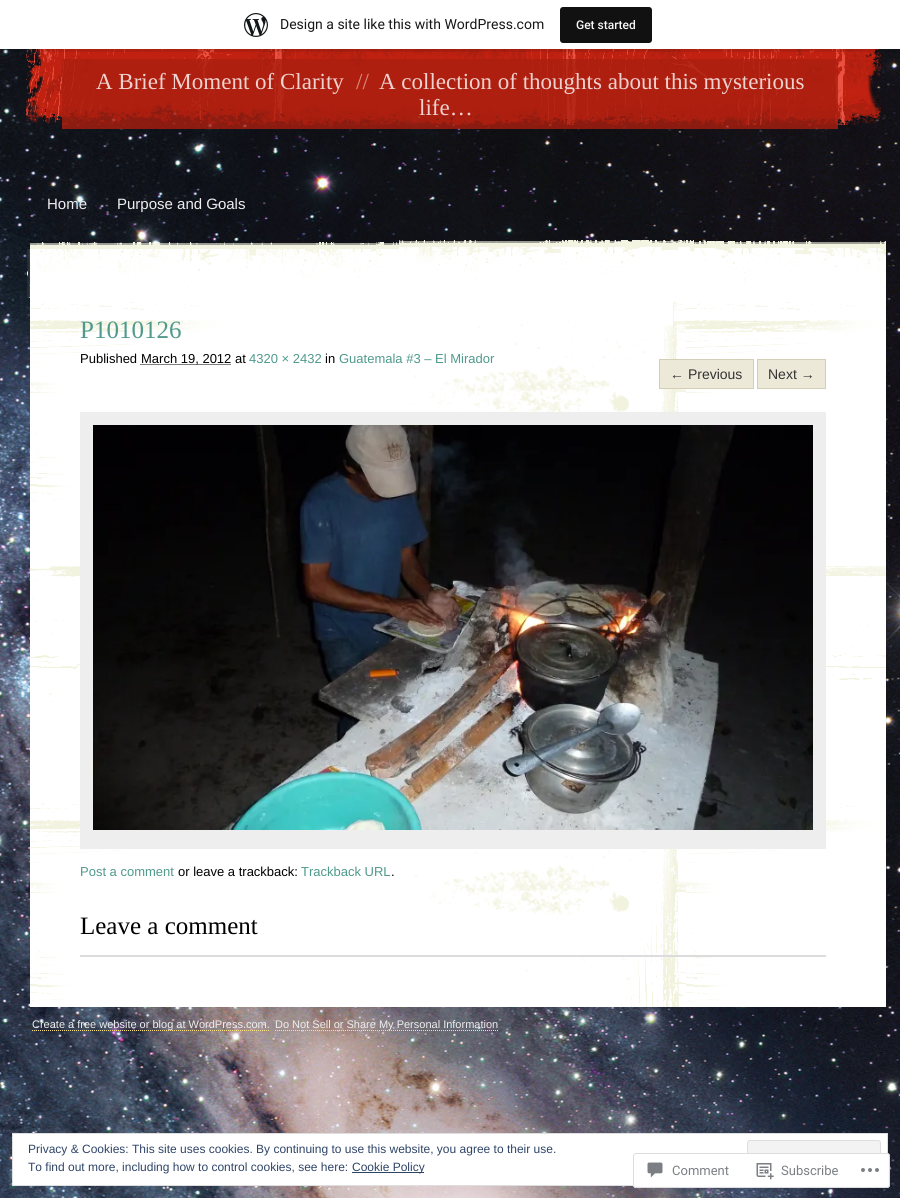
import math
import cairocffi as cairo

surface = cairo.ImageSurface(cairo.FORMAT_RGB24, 900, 1198)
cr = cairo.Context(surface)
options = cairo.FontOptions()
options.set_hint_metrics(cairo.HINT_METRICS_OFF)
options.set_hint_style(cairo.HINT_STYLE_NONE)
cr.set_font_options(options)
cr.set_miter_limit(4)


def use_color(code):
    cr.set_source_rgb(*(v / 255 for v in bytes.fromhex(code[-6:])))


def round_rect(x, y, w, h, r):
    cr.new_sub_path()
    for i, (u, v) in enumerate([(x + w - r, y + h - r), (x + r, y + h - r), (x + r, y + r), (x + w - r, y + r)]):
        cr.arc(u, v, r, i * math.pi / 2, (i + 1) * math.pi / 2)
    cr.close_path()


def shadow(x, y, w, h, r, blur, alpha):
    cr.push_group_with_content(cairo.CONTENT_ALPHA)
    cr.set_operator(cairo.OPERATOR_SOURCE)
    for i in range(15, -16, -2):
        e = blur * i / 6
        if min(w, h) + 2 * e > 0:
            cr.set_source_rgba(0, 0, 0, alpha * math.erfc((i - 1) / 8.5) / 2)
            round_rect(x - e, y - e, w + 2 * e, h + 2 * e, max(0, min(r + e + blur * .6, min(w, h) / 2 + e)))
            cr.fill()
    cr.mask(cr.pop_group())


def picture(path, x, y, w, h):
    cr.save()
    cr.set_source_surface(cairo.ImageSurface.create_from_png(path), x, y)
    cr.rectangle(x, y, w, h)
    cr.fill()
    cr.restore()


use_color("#ffffff")
cr.paint()
picture("img1.png", 0, 49, 900, 1149)
picture("img3.png", 26, 49, 855, 81)
use_color("#000000")
shadow(0, 1, 900, 49, 0, 1, 0.05)
cr.set_source_rgba(0, 0, 0, 0.08)
cr.new_path()
cr.move_to(1, 49)
cr.line_to(1, 52)
cr.line_to(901, 52)
cr.line_to(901, 3)
cr.line_to(900, 3)
cr.line_to(900, 49)
cr.close_path()
cr.fill()
use_color("#ffffff")
cr.rectangle(0, 0, 900, 49)
cr.fill()
picture("img2.png", 244, 13, 24, 24)
cr.select_font_face("Roboto")
cr.set_font_size(14)
use_color("#171717")
cr.move_to(280, 29)
cr.show_text("Design a site like this with WordPress.com")
use_color("#111111")
round_rect(560, 7, 92, 36, 3)
cr.fill()
cr.select_font_face("Roboto Medium")
cr.set_font_size(12)
use_color("#f6f7f7")
cr.move_to(576, 29)
cr.show_text("Get started")
cr.set_source_rgba(0.667, 0.122, 0.063, 0.8)
cr.rectangle(62, 59, 776, 70)
cr.fill()
cr.select_font_face("Liberation Serif")
cr.set_font_size(23)
use_color("#efd2cf")
cr.move_to(96, 89)
cr.show_text("A Brief Moment of Clarity")
use_color("#df8c83")
cr.move_to(356, 89)
cr.show_text("//")
use_color("#efd2cf")
cr.move_to(379, 89)
cr.show_text("A collection of thoughts about this mysterious")
cr.move_to(419, 115)
cr.show_text("life…")
cr.select_font_face("Liberation Sans")
cr.set_font_size(15)
use_color("#eeeeee")
cr.move_to(47, 209)
cr.show_text("Home")
cr.move_to(117, 209)
cr.show_text("Purpose and Goals")
picture("img4.png", 27, 240, 859, 58)
picture("img5.png", 30, 296, 856, 711)
cr.select_font_face("Liberation Serif")
cr.set_font_size(25)
use_color("#4f998d")
cr.move_to(80, 338)
cr.show_text("P1010126")
cr.select_font_face("Liberation Sans")
cr.set_font_size(13)
use_color("#000000")
cr.move_to(80, 363)
cr.show_text("Published")
cr.new_path()
cr.move_to(140.5, 364.5)
cr.line_to(231, 364.5)
cr.set_line_width(1)
cr.set_dash([1, 1])
cr.stroke()
cr.move_to(141, 363)
cr.show_text("March 19, 2012 at")
use_color("#4f998d")
cr.move_to(249, 363)
cr.show_text("4320 × 2432")
use_color("#000000")
cr.move_to(325, 363)
cr.show_text("in")
use_color("#4f998d")
cr.move_to(339, 363)
cr.show_text("Guatemala #3 – El Mirador")
use_color("#ece9d9")
cr.rectangle(659.5, 359.5, 94, 29)
cr.fill_preserve()
use_color("#d3cfb7")
cr.set_dash([])
cr.stroke()
cr.set_font_size(14)
use_color("#333333")
cr.move_to(670, 379)
cr.show_text("← Previous")
use_color("#ece9d9")
cr.rectangle(757.5, 359.5, 68, 29)
cr.fill_preserve()
use_color("#d3cfb7")
cr.stroke()
use_color("#333333")
cr.move_to(768, 379)
cr.show_text("Next →")
use_color("#eeeeee")
cr.rectangle(80, 412, 746, 437)
cr.fill()
picture("img6.png", 93, 425, 720, 405)
cr.set_font_size(13)
use_color("#4f998d")
cr.move_to(80, 876)
cr.show_text("Post a comment")
use_color("#000000")
cr.move_to(178, 876)
cr.show_text("or leave a trackback:")
use_color("#4f998d")
cr.move_to(301, 876)
cr.show_text("Trackback URL")
use_color("#000000")
cr.move_to(391, 876)
cr.show_text(".")
cr.select_font_face("Liberation Serif")
cr.set_font_size(25)
cr.move_to(80, 934)
cr.show_text("Leave a comment")
use_color("#dcdcde")
cr.rectangle(80, 955, 746, 2)
cr.fill()
cr.new_path()
cr.move_to(32, 1030.5)
cr.line_to(270, 1030.5)
use_color("#fde37b")
cr.set_dash([1, 1])
cr.stroke()
cr.select_font_face("Liberation Sans")
cr.set_font_size(11)
use_color("#eeeeee")
cr.move_to(32, 1028)
cr.show_text("Create a free website or blog at WordPress.com.")
cr.new_path()
cr.move_to(275, 1030.5)
cr.line_to(498, 1030.5)
use_color("#fde37b")
cr.stroke()
use_color("#eeeeee")
cr.move_to(275, 1028)
cr.show_text("Do Not Sell or Share My Personal Information")
use_color("#ffffff")
cr.rectangle(12.5, 1133.5, 875, 52)
cr.fill_preserve()
use_color("#dedede")
cr.set_dash([])
cr.stroke()
cr.set_font_size(12)
use_color("#2e4467")
cr.move_to(28, 1153)
cr.show_text("Privacy & Cookies: This site uses cookies. By continuing to use this website, you agree to their use.")
use_color("#f3f3f3")
round_rect(747.5, 1140.5, 133, 38, 2.5)
cr.fill_preserve()
use_color("#dedede")
cr.stroke()
use_color("#2e4467")
cr.move_to(28, 1171)
cr.show_text("To find out more, including how to control cookies, see here:")
cr.rectangle(352, 1172, 72, 1)
cr.fill()
cr.move_to(352, 1171)
cr.show_text("Cookie Policy")
cr.set_source_rgba(1, 1, 1, 0.98)
round_rect(633, 1153, 257, 35, 3)
cr.fill()
round_rect(633.5, 1153.5, 256, 34, 2.5)
cr.set_source_rgba(0.863, 0.863, 0.871, 0.98)
cr.stroke()
picture("img7.png", 647, 1162, 16, 16)
cr.select_font_face("Roboto")
cr.set_font_size(13)
use_color("#7b7f85")
cr.move_to(672, 1175)
cr.show_text("Comment")
picture("img8.png", 756, 1163, 18, 17)
cr.move_to(781, 1175)
cr.show_text("Subscribe")
picture("img9.png", 861, 1168, 18, 4)
surface.write_to_png("result.png")
